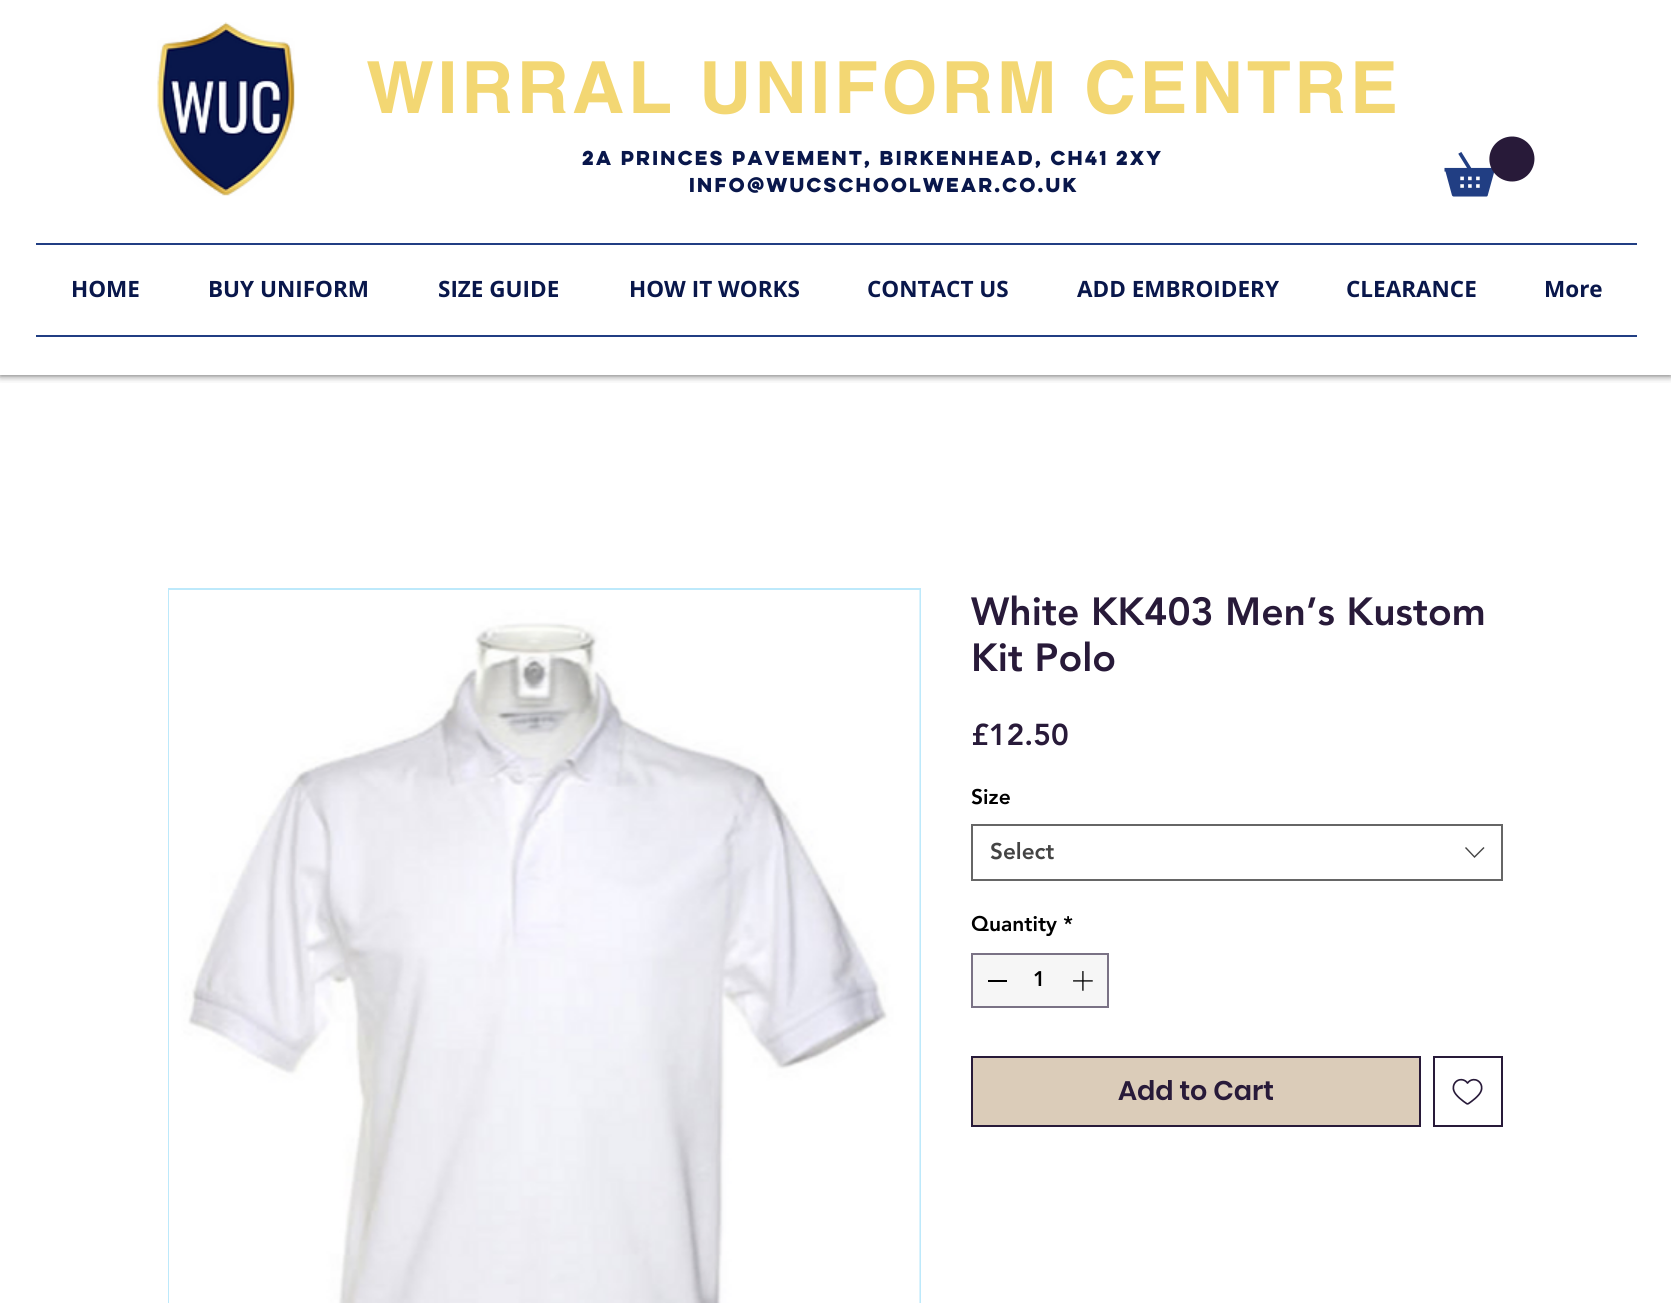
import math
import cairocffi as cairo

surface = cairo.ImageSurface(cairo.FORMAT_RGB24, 1671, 1303)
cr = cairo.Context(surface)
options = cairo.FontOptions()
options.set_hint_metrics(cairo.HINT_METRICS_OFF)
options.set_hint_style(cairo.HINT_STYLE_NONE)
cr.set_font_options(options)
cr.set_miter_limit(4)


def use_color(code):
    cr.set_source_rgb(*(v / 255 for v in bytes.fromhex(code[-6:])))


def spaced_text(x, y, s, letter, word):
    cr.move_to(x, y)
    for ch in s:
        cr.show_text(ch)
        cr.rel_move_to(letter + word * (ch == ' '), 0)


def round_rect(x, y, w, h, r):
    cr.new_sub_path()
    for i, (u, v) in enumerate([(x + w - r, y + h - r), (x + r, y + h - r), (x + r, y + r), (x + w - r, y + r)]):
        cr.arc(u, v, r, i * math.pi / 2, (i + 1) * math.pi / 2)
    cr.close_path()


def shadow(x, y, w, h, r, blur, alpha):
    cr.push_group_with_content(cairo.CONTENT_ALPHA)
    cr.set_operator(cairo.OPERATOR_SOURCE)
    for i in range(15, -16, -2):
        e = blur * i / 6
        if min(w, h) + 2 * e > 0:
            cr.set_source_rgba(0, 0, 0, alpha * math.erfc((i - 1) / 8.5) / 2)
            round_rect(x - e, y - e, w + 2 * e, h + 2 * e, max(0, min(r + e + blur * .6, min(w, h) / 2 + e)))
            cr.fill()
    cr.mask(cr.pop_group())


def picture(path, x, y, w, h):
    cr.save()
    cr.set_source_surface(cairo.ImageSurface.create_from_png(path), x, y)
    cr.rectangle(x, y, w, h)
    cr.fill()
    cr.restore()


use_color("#ffffff")
cr.paint()
cr.save()
cr.rectangle(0, 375, 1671, 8)
cr.clip()
use_color("#000000")
shadow(0, 0, 1671, 375, 0, 4, 0.7)
cr.restore()
picture("img1.png", 157, 22, 138, 174)
cr.select_font_face("helvetica", cairo.FONT_SLANT_NORMAL, cairo.FONT_WEIGHT_BOLD)
cr.set_font_size(72)
use_color("#f3d773")
spaced_text(366, 113, "WIRRAL UNIFORM CENTRE", 3.6, 0)
cr.select_font_face("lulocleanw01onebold", cairo.FONT_SLANT_NORMAL, cairo.FONT_WEIGHT_BOLD)
cr.set_font_size(18)
use_color("#09174b")
spaced_text(582, 165, "2A pRINCES pAVEMENT, bIRKENHEAD, CH41 2XY", -1.8, 0)
spaced_text(689, 192, "Info@WUCschoolwear.co.uk", -1.8, 0)
picture("img2.png", 1444, 136, 91, 61)
use_color("#213e83")
cr.rectangle(36, 243, 1601, 2)
cr.fill()
cr.rectangle(36, 335, 1601, 2)
cr.fill()
cr.select_font_face("Open Sans", cairo.FONT_SLANT_NORMAL, cairo.FONT_WEIGHT_BOLD)
cr.set_font_size(22.5)
use_color("#09174b")
cr.move_to(71, 297)
cr.show_text("HOME")
cr.move_to(208, 297)
cr.show_text("BUY UNIFORM")
cr.move_to(438, 297)
cr.show_text("SIZE GUIDE")
cr.move_to(629, 297)
cr.show_text("HOW IT WORKS")
cr.move_to(867, 297)
cr.show_text("CONTACT US")
cr.move_to(1077, 297)
cr.show_text("ADD EMBROIDERY")
cr.move_to(1346, 297)
cr.show_text("CLEARANCE")
cr.move_to(1544, 297)
cr.show_text("More")
cr.rectangle(169, 589, 751, 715)
use_color("#bde9fb")
cr.stroke()
picture("img3.png", 169, 590, 751, 713)
cr.select_font_face("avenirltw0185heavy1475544 Black")
cr.set_font_size(39)
use_color("#281a39")
cr.move_to(971, 625)
cr.show_text("White KK403 Men’s Kustom")
cr.move_to(971, 671)
cr.show_text("Kit Polo")
cr.set_font_size(30)
cr.move_to(971, 745)
cr.show_text("£12.50")
cr.set_font_size(21)
use_color("#000000")
cr.move_to(971, 804)
cr.show_text("Size")
cr.rectangle(972, 825, 530, 55)
use_color("#666666")
cr.stroke()
cr.set_font_size(22.5)
use_color("#444444")
cr.move_to(990, 859)
cr.show_text("Select")
cr.set_fill_rule(cairo.FILL_RULE_EVEN_ODD)
cr.new_path()
cr.move_to(1483.5, 847)
cr.line_to(1484.5, 848)
cr.line_to(1474.5, 858)
cr.line_to(1465, 848)
cr.line_to(1466, 847)
cr.line_to(1474.5, 856)
cr.close_path()
cr.fill()
cr.set_font_size(21)
use_color("#000000")
cr.move_to(971, 931)
cr.show_text("Quantity *")
use_color("#f6f6f6")
cr.rectangle(972, 954, 136, 53)
cr.fill_preserve()
use_color("#7a7285")
cr.stroke()
use_color("#000000")
cr.rectangle(988, 980, 19, 2)
cr.fill()
cr.move_to(1033, 986)
cr.show_text("1")
picture("img4.png", 1073, 971, 20, 20)
use_color("#dbccb9")
cr.rectangle(972, 1057, 448, 69)
cr.fill_preserve()
use_color("#281a39")
cr.stroke()
cr.select_font_face("Poppins SemiBold")
cr.set_font_size(27)
cr.move_to(1118, 1100)
cr.show_text("Add to Cart")
cr.rectangle(1434, 1057, 68, 69)
cr.stroke()
picture("img5.png", 1452, 1078, 31, 27)
surface.write_to_png("result.png")
